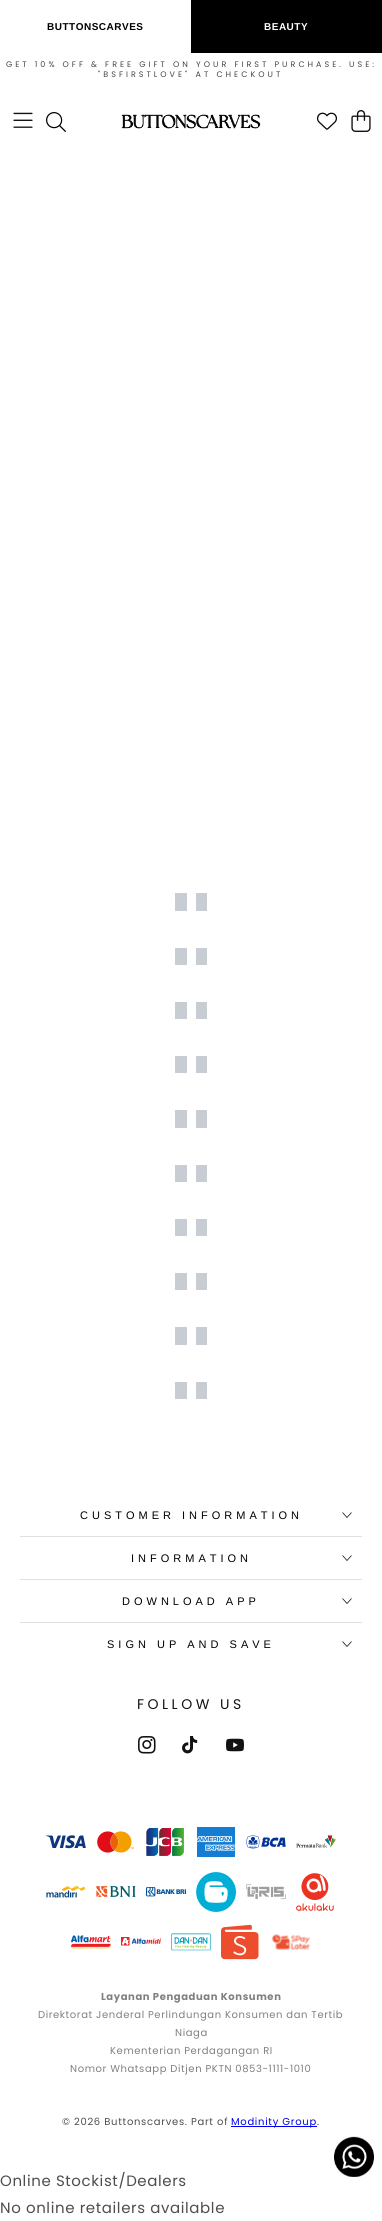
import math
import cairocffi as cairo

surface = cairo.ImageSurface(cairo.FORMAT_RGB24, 382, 2221)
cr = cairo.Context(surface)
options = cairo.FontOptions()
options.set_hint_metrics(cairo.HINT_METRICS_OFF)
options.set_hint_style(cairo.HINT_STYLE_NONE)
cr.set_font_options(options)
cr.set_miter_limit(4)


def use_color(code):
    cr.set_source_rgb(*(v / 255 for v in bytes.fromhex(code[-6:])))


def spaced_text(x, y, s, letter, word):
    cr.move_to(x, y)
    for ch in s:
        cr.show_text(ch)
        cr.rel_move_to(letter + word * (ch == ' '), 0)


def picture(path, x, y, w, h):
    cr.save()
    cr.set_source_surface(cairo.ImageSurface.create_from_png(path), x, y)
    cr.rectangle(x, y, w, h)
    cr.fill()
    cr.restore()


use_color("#ffffff")
cr.paint()
cr.select_font_face("Liberation Sans", cairo.FONT_SLANT_NORMAL, cairo.FONT_WEIGHT_BOLD)
cr.set_font_size(10)
use_color("#000000")
spaced_text(47, 30, "BUTTONSCARVES", 0.5, 0)
cr.rectangle(191, 0, 191, 53)
cr.fill()
use_color("#ffffff")
spaced_text(264, 30, "BEAUTY", 0.5, 0)
cr.select_font_face("Poppins")
cr.set_font_size(8)
use_color("#454545")
spaced_text(6, 67, "GET 10% OFF & FREE GIFT ON YOUR FIRST PURCHASE. USE:", 3, 0)
spaced_text(98, 77, "\"BSFIRSTLOVE\" AT CHECKOUT", 3, 0)
picture("img1.png", 13, 112, 20, 16)
picture("img2.png", 46, 112, 20, 20)
picture("img3.png", 121, 114, 140, 15)
picture("img4.png", 317, 112, 20, 18)
picture("img5.png", 351, 110, 20, 22)
use_color("#c7cdd2")
cr.rectangle(175, 893, 12, 18)
cr.fill()
cr.rectangle(196, 893, 11, 18)
cr.fill()
cr.rectangle(175, 948, 12, 17)
cr.fill()
cr.rectangle(196, 948, 11, 17)
cr.fill()
cr.rectangle(175, 1002, 12, 17)
cr.fill()
cr.rectangle(196, 1002, 11, 17)
cr.fill()
cr.rectangle(175, 1056, 12, 17)
cr.fill()
cr.rectangle(196, 1056, 11, 17)
cr.fill()
cr.rectangle(175, 1110, 12, 18)
cr.fill()
cr.rectangle(196, 1110, 11, 18)
cr.fill()
cr.rectangle(175, 1165, 12, 17)
cr.fill()
cr.rectangle(196, 1165, 11, 17)
cr.fill()
cr.rectangle(175, 1219, 12, 17)
cr.fill()
cr.rectangle(196, 1219, 11, 17)
cr.fill()
cr.rectangle(175, 1273, 12, 17)
cr.fill()
cr.rectangle(196, 1273, 11, 17)
cr.fill()
cr.rectangle(175, 1327, 12, 18)
cr.fill()
cr.rectangle(196, 1327, 11, 18)
cr.fill()
cr.rectangle(175, 1382, 12, 17)
cr.fill()
cr.rectangle(196, 1382, 11, 17)
cr.fill()
use_color("#e0e0e0")
cr.rectangle(20, 1536, 342, 1)
cr.fill()
cr.select_font_face("Liberation Sans")
cr.set_font_size(11)
use_color("#000000")
spaced_text(80, 1519, "CUSTOMER INFORMATION", 4, 0)
cr.new_path()
cr.move_to(342.5, 1512.5)
cr.line_to(347, 1517.5)
cr.line_to(351.5, 1512.5)
cr.move_to(342.5, 1555.5)
cr.line_to(347, 1560.5)
cr.line_to(351.5, 1555.5)
cr.set_line_width(0.7)
cr.stroke()
use_color("#e0e0e0")
cr.rectangle(20, 1579, 342, 1)
cr.fill()
use_color("#000000")
spaced_text(131, 1562, "INFORMATION", 4, 0)
use_color("#e0e0e0")
cr.rectangle(20, 1622, 342, 1)
cr.fill()
use_color("#000000")
spaced_text(122, 1605, "DOWNLOAD APP", 4, 0)
cr.new_path()
cr.move_to(342.5, 1598.5)
cr.line_to(347, 1603.5)
cr.line_to(351.5, 1598.5)
cr.move_to(342.5, 1641.5)
cr.line_to(347, 1646.5)
cr.line_to(351.5, 1641.5)
cr.stroke()
spaced_text(107, 1648, "SIGN UP AND SAVE", 4, 0)
cr.select_font_face("Poppins")
cr.set_font_size(14)
use_color("#121212")
spaced_text(137, 1709, "FOLLOW US", 3.5, 0)
picture("img6.png", 138, 1736, 18, 18)
picture("img7.png", 182, 1736, 16, 18)
picture("img8.png", 226, 1738, 18, 14)
picture("img9.png", 46, 1835, 40, 14)
picture("img10.png", 97, 1831, 37, 22)
picture("img11.png", 146, 1828, 38, 28)
picture("img12.png", 197, 1827, 38, 30)
picture("img13.png", 246, 1835, 40, 14)
picture("img14.png", 296, 1835, 40, 13)
picture("img15.png", 46, 1886, 40, 12)
picture("img16.png", 96, 1886, 40, 12)
picture("img17.png", 146, 1887, 40, 10)
picture("img18.png", 196, 1872, 40, 40)
picture("img19.png", 246, 1884, 40, 16)
picture("img20.png", 296, 1873, 38, 38)
picture("img21.png", 71, 1935, 40, 14)
picture("img22.png", 121, 1937, 40, 9)
picture("img23.png", 171, 1933, 40, 18)
picture("img24.png", 221, 1924, 38, 36)
picture("img25.png", 271, 1934, 40, 16)
cr.select_font_face("Poppins", cairo.FONT_SLANT_NORMAL, cairo.FONT_WEIGHT_BOLD)
cr.set_font_size(10)
use_color("#808080")
spaced_text(101, 2000, "Layanan Pengaduan Konsumen", 0.6, 0)
cr.select_font_face("Poppins")
spaced_text(38, 2018, "Direktorat Jenderal Perlindungan Konsumen dan Tertib", 0.6, 0)
spaced_text(175, 2036, "Niaga", 0.6, 0)
spaced_text(110, 2054, "Kementerian Perdagangan RI", 0.6, 0)
spaced_text(70, 2072, "Nomor Whatsapp Ditjen PKTN 0853-1111-1010", 0.6, 0)
use_color("#4d4d4d")
spaced_text(62, 2125, "© 2026 Buttonscarves. Part of", 0.7, 0)
use_color("#0000ee")
cr.rectangle(231, 2126, 86, 1)
cr.fill()
spaced_text(231, 2125, "Modinity Group", 0.7, 0)
use_color("#4d4d4d")
spaced_text(317, 2125, ".", 0.7, 0)
picture("img26.png", 334, 2136, 40, 41)
cr.set_font_size(15)
spaced_text(0, 2186, "Online Stockist/Dealers", 0.6, 0)
spaced_text(0, 2213, "No online retailers available", 0.6, 0)
surface.write_to_png("result.png")
